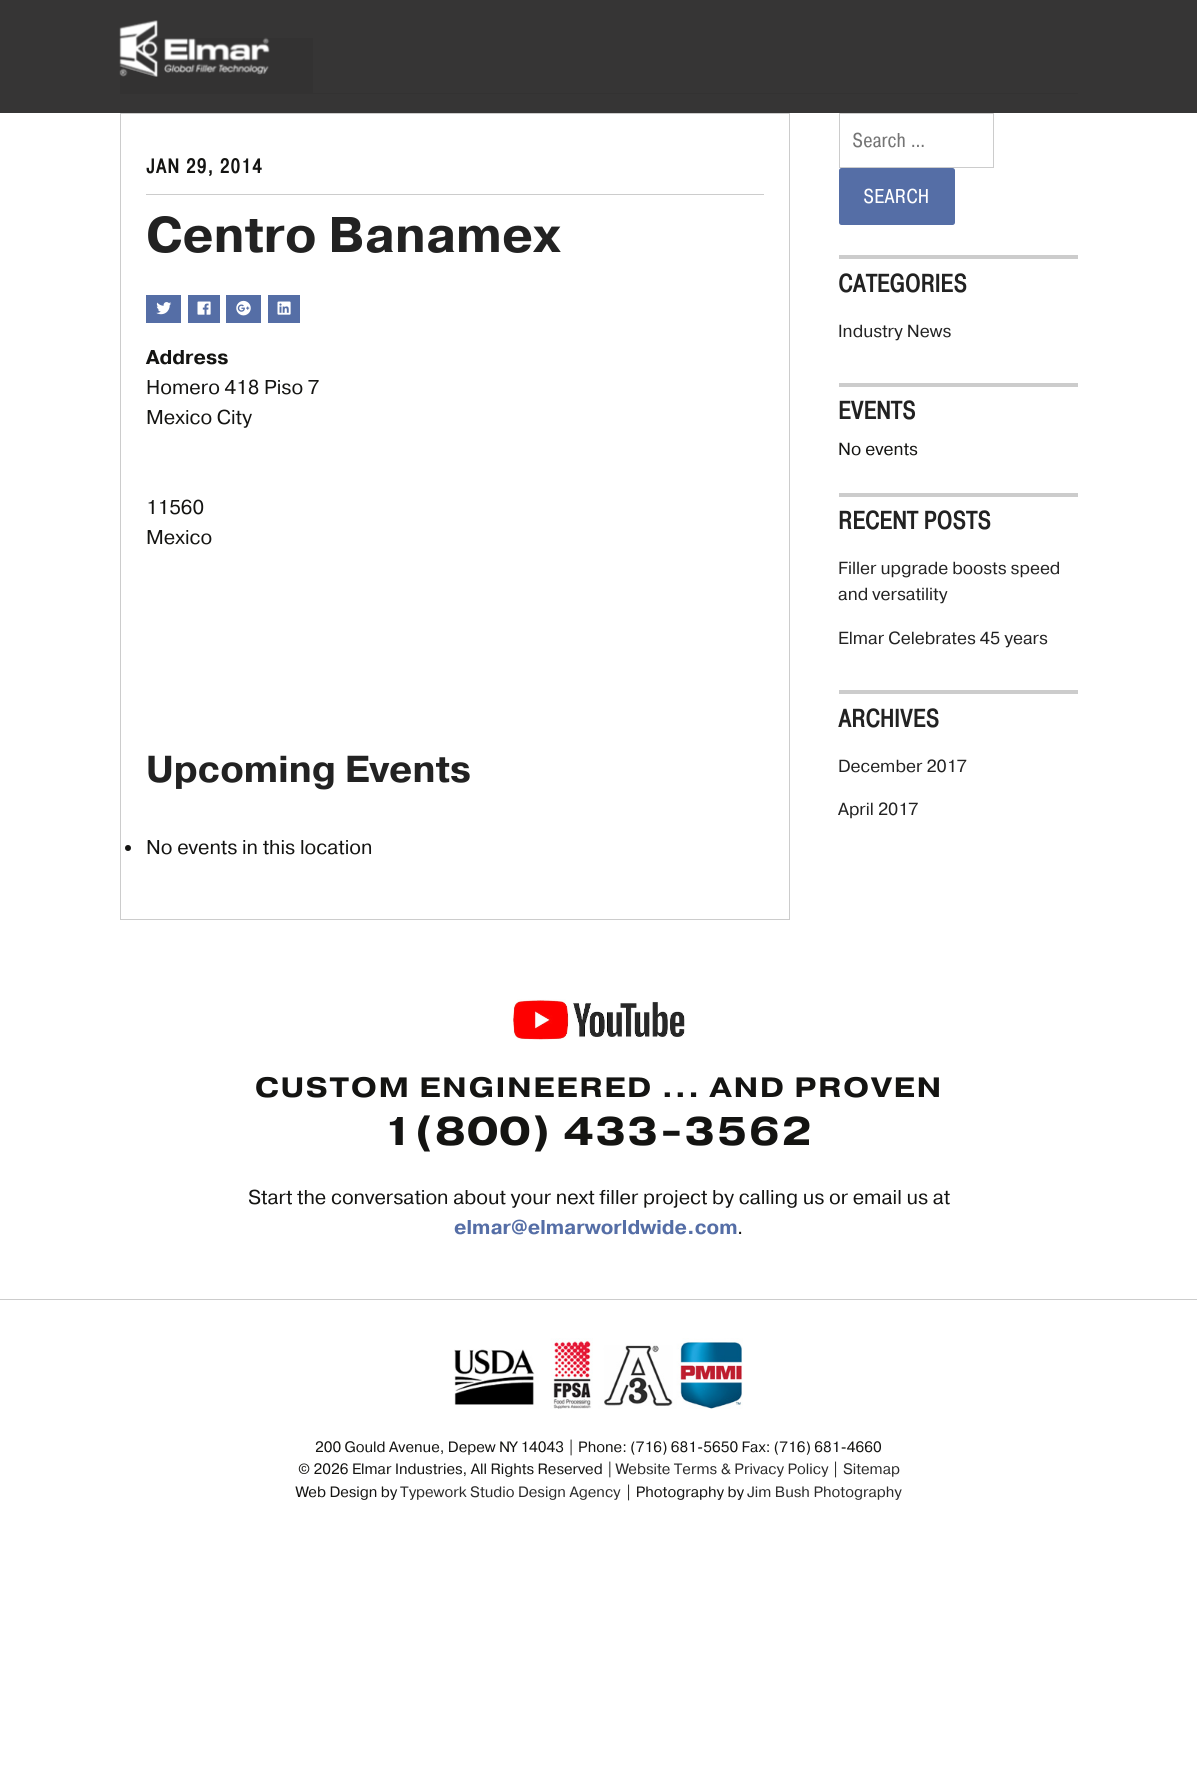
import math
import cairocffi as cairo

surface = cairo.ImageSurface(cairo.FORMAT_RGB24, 1197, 1774)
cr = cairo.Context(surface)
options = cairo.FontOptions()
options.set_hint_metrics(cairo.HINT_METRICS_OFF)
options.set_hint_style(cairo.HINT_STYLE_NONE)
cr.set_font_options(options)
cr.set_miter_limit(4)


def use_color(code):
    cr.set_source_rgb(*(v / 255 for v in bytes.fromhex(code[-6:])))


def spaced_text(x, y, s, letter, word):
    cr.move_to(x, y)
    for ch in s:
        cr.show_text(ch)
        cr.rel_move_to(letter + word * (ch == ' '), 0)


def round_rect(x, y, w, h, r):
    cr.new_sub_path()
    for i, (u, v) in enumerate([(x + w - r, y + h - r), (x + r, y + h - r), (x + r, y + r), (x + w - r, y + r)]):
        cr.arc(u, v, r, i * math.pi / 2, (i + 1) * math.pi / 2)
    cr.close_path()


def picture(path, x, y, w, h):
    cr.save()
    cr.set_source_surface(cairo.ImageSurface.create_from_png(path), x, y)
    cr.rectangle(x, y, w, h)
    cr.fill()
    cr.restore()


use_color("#ffffff")
cr.paint()
use_color("#363535")
cr.rectangle(0, 0, 1197, 113)
cr.fill()
use_color("#333232")
cr.rectangle(120, 38, 193, 55)
cr.fill()
picture("img1.png", 119, 20, 151, 57)
cr.rectangle(120, 93, 958, 1)
cr.fill()
cr.rectangle(120.5, 113.5, 669, 806)
use_color("#cccccc")
cr.set_line_width(1)
cr.stroke()
cr.rectangle(146, 194, 618, 1)
cr.fill()
cr.select_font_face("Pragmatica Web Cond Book", cairo.FONT_SLANT_NORMAL, cairo.FONT_WEIGHT_BOLD)
cr.set_font_size(20)
use_color("#141412")
spaced_text(146, 173, "JAN 29, 2014", 1, 0)
cr.select_font_face("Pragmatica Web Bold", cairo.FONT_SLANT_NORMAL, cairo.FONT_WEIGHT_BOLD)
cr.set_font_size(50)
use_color("#222222")
cr.move_to(146, 252)
cr.show_text("Centro Banamex")
use_color("#556ea6")
cr.rectangle(146, 295, 35, 28)
cr.fill()
picture("img2.png", 156, 302, 16, 13)
cr.rectangle(188, 295, 32, 28)
cr.fill()
picture("img3.png", 197, 301, 14, 14)
cr.rectangle(226, 295, 35, 28)
cr.fill()
picture("img4.png", 236, 300, 15, 16)
cr.rectangle(268, 295, 32, 28)
cr.fill()
picture("img5.png", 277, 301, 14, 14)
cr.set_font_size(20)
use_color("#141412")
cr.move_to(146, 364)
cr.show_text("Address")
cr.select_font_face("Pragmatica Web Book")
cr.move_to(146, 394)
cr.show_text("Homero 418 Piso 7")
cr.move_to(146, 424)
cr.show_text("Mexico City")
cr.move_to(146, 514)
cr.show_text("11560")
cr.move_to(146, 544)
cr.show_text("Mexico")
cr.select_font_face("Pragmatica Web Bold", cairo.FONT_SLANT_NORMAL, cairo.FONT_WEIGHT_BOLD)
cr.set_font_size(37.5)
use_color("#222222")
cr.move_to(146, 782)
cr.show_text("Upcoming Events")
use_color("#141412")
cr.new_path()
cr.arc(128, 848, 3, 0, 2 * math.pi)
cr.fill()
cr.select_font_face("Pragmatica Web Book")
cr.set_font_size(20)
cr.move_to(146, 854)
cr.show_text("No events in this location")
cr.rectangle(839.5, 113.5, 154, 54)
use_color("#cccccc")
cr.stroke()
cr.select_font_face("Pragmatica Web Cond Book")
use_color("#757575")
cr.move_to(852, 147)
cr.show_text("Search …")
use_color("#556ea6")
round_rect(839, 168, 116, 57, 2.5)
cr.fill()
use_color("#ffffff")
cr.move_to(863, 203)
cr.show_text("SEARCH")
use_color("#cccccc")
cr.rectangle(839, 255, 239, 4)
cr.fill()
cr.select_font_face("Pragmatica Web Cond Book", cairo.FONT_SLANT_NORMAL, cairo.FONT_WEIGHT_BOLD)
cr.set_font_size(25)
use_color("#222222")
cr.move_to(838, 292)
cr.show_text("CATEGORIES")
cr.select_font_face("Pragmatica Web Book")
cr.set_font_size(17.5)
cr.move_to(838, 337)
cr.show_text("Industry News")
use_color("#cccccc")
cr.rectangle(839, 383, 239, 4)
cr.fill()
cr.select_font_face("Pragmatica Web Cond Book", cairo.FONT_SLANT_NORMAL, cairo.FONT_WEIGHT_BOLD)
cr.set_font_size(25)
use_color("#222222")
cr.move_to(838, 419)
cr.show_text("EVENTS")
cr.select_font_face("Pragmatica Web Book")
cr.set_font_size(17.5)
use_color("#141412")
cr.move_to(838, 455)
cr.show_text("No events")
use_color("#cccccc")
cr.rectangle(839, 493, 239, 4)
cr.fill()
cr.select_font_face("Pragmatica Web Cond Book", cairo.FONT_SLANT_NORMAL, cairo.FONT_WEIGHT_BOLD)
cr.set_font_size(25)
use_color("#222222")
cr.move_to(838, 529)
cr.show_text("RECENT POSTS")
cr.select_font_face("Pragmatica Web Book")
cr.set_font_size(17.5)
cr.move_to(838, 574)
cr.show_text("Filler upgrade boosts speed")
cr.move_to(838, 600)
cr.show_text("and versatility")
cr.move_to(838, 644)
cr.show_text("Elmar Celebrates 45 years")
use_color("#cccccc")
cr.rectangle(839, 690, 239, 4)
cr.fill()
cr.select_font_face("Pragmatica Web Cond Book", cairo.FONT_SLANT_NORMAL, cairo.FONT_WEIGHT_BOLD)
cr.set_font_size(25)
use_color("#222222")
cr.move_to(838, 727)
cr.show_text("ARCHIVES")
cr.select_font_face("Pragmatica Web Book")
cr.set_font_size(17.5)
cr.move_to(838, 772)
cr.show_text("December 2017")
cr.move_to(838, 815)
cr.show_text("April 2017")
picture("img6.png", 513, 999, 172, 41)
cr.select_font_face("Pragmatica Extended", cairo.FONT_SLANT_NORMAL, cairo.FONT_WEIGHT_BOLD)
cr.set_font_size(28)
use_color("#141412")
spaced_text(255, 1097, "CUSTOM ENGINEERED ... AND PROVEN", 2, 0)
cr.set_font_size(40)
spaced_text(383, 1145, "1(800) 433-3562", 2, 0)
cr.select_font_face("Pragmatica Web Book")
cr.set_font_size(20)
cr.move_to(248, 1204)
cr.show_text("Start the conversation about your next filler project by calling us or email us at")
cr.select_font_face("Pragmatica Web Bold", cairo.FONT_SLANT_NORMAL, cairo.FONT_WEIGHT_BOLD)
use_color("#556ea6")
cr.move_to(454, 1234)
cr.show_text("elmar@elmarworldwide.com")
cr.select_font_face("Pragmatica Web Book")
use_color("#141412")
cr.move_to(737, 1234)
cr.show_text(".")
use_color("#cccccc")
cr.rectangle(0, 1299, 1197, 1)
cr.fill()
picture("img7.png", 454, 1338, 289, 71)
cr.set_font_size(15)
use_color("#141412")
cr.move_to(315, 1452)
cr.show_text("200 Gould Avenue, Depew NY 14043 | Phone: (716) 681-5650 Fax: (716) 681-4660")
cr.move_to(298, 1474)
cr.show_text("© 2026 Elmar Industries, All Rights Reserved |")
use_color("#2b2b2b")
cr.move_to(616, 1474)
cr.show_text("Website Terms & Privacy Policy")
use_color("#141412")
cr.move_to(832, 1474)
cr.show_text("|")
use_color("#2b2b2b")
cr.move_to(843, 1474)
cr.show_text("Sitemap")
use_color("#141412")
cr.move_to(296, 1497)
cr.show_text("Web Design by")
use_color("#2b2b2b")
cr.move_to(400, 1497)
cr.show_text("Typework Studio Design Agency")
use_color("#141412")
cr.move_to(625, 1497)
cr.show_text("| Photography by")
use_color("#2b2b2b")
cr.move_to(747, 1497)
cr.show_text("Jim Bush Photography")
surface.write_to_png("result.png")
